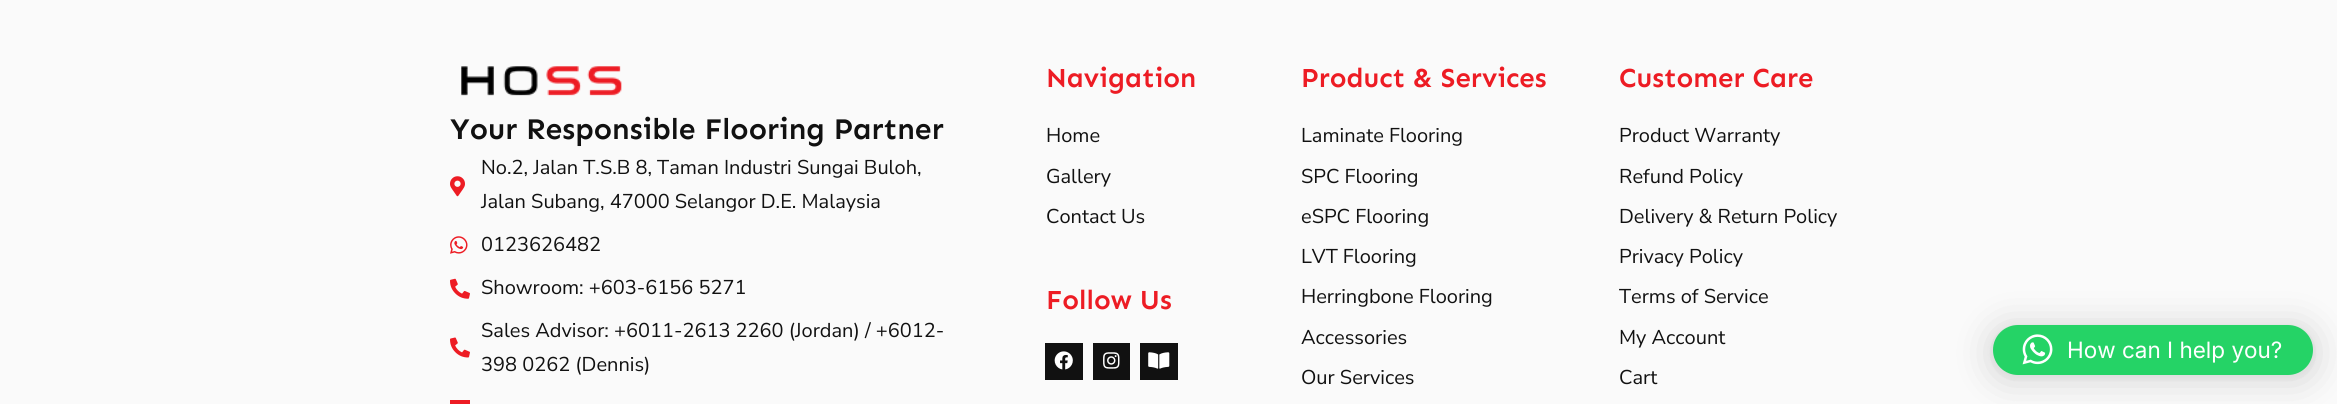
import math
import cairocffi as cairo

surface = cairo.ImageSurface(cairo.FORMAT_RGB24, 2337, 404)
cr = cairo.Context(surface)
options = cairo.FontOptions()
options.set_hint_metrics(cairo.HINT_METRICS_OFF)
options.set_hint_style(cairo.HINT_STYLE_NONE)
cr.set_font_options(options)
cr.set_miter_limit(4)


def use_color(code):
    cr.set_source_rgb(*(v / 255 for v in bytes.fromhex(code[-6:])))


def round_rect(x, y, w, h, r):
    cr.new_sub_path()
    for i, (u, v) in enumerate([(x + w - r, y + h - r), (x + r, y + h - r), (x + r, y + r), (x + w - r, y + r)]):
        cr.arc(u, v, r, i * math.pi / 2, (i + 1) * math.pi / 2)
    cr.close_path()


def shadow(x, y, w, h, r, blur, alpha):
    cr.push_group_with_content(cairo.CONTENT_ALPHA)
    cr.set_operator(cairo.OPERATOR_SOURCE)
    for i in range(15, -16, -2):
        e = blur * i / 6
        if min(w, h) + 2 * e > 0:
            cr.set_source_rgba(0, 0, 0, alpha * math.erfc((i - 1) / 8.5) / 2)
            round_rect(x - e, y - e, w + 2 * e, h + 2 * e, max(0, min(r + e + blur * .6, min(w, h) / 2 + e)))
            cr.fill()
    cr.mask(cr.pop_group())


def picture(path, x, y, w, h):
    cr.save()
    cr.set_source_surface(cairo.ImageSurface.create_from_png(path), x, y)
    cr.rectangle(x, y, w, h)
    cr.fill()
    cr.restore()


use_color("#fafafa")
cr.paint()
picture("img1.png", 461, 66, 161, 30)
cr.select_font_face("Sen SemiBold")
cr.set_font_size(30)
use_color("#111111")
cr.move_to(450, 139)
cr.show_text("Your Responsible Flooring Partner")
picture("img2.png", 450, 176, 15, 21)
cr.select_font_face("Nunito Sans")
cr.set_font_size(20)
cr.move_to(481, 174)
cr.show_text("No.2, Jalan T.S.B 8, Taman Industri Sungai Buloh,")
cr.move_to(481, 208)
cr.show_text("Jalan Subang, 47000 Selangor D.E. Malaysia")
picture("img3.png", 450, 236, 18, 18)
cr.move_to(481, 251)
cr.show_text("0123626482")
picture("img4.png", 450, 278, 20, 21)
cr.move_to(481, 294)
cr.show_text("Showroom: +603-6156 5271")
picture("img5.png", 450, 337, 20, 21)
cr.move_to(481, 337)
cr.show_text("Sales Advisor: +6011-2613 2260 (Jordan) / +6012-")
cr.move_to(481, 371)
cr.show_text("398 0262 (Dennis)")
use_color("#ed1c24")
cr.rectangle(450, 400, 20, 4)
cr.fill()
cr.select_font_face("Sen SemiBold")
cr.set_font_size(27.5)
cr.move_to(1046, 87)
cr.show_text("Navigation")
cr.select_font_face("Nunito Sans")
cr.set_font_size(20)
use_color("#111111")
cr.move_to(1046, 142)
cr.show_text("Home")
cr.move_to(1046, 183)
cr.show_text("Gallery")
cr.move_to(1046, 223)
cr.show_text("Contact Us")
cr.select_font_face("Sen SemiBold")
cr.set_font_size(27.5)
use_color("#ed1c24")
cr.move_to(1046, 309)
cr.show_text("Follow Us")
use_color("#111111")
cr.rectangle(1045, 343, 38, 37)
cr.fill()
picture("img6.png", 1054, 351, 19, 19)
cr.rectangle(1093, 343, 37, 37)
cr.fill()
picture("img7.png", 1103, 352, 17, 17)
cr.rectangle(1140, 343, 38, 37)
cr.fill()
picture("img8.png", 1148, 352, 22, 17)
use_color("#ed1c24")
cr.move_to(1301, 87)
cr.show_text("Product & Services")
cr.select_font_face("Nunito Sans")
cr.set_font_size(20)
use_color("#111111")
cr.move_to(1301, 142)
cr.show_text("Laminate Flooring")
cr.move_to(1301, 183)
cr.show_text("SPC Flooring")
cr.move_to(1301, 223)
cr.show_text("eSPC Flooring")
cr.move_to(1301, 263)
cr.show_text("LVT Flooring")
cr.move_to(1301, 303)
cr.show_text("Herringbone Flooring")
cr.move_to(1301, 344)
cr.show_text("Accessories")
cr.move_to(1301, 384)
cr.show_text("Our Services")
cr.select_font_face("Sen SemiBold")
cr.set_font_size(27.5)
use_color("#ed1c24")
cr.move_to(1619, 87)
cr.show_text("Customer Care")
cr.select_font_face("Nunito Sans")
cr.set_font_size(20)
use_color("#111111")
cr.move_to(1619, 142)
cr.show_text("Product Warranty")
cr.move_to(1619, 183)
cr.show_text("Refund Policy")
cr.move_to(1619, 223)
cr.show_text("Delivery & Return Policy")
cr.move_to(1619, 263)
cr.show_text("Privacy Policy")
cr.move_to(1619, 303)
cr.show_text("Terms of Service")
cr.move_to(1619, 344)
cr.show_text("My Account")
cr.move_to(1619, 384)
cr.show_text("Cart")
use_color("#000000")
shadow(1993, 328, 320, 50, 25, 20, 0.16)
shadow(1993, 326, 320, 50, 25, 4, 0.06)
use_color("#25d366")
round_rect(1993, 325, 320, 50, 25)
cr.fill()
picture("img9.png", 2022, 334, 31, 31)
cr.select_font_face("Inter")
cr.set_font_size(22.5)
use_color("#ffffff")
cr.move_to(2067, 358)
cr.show_text("How can I help you?")
surface.write_to_png("result.png")
